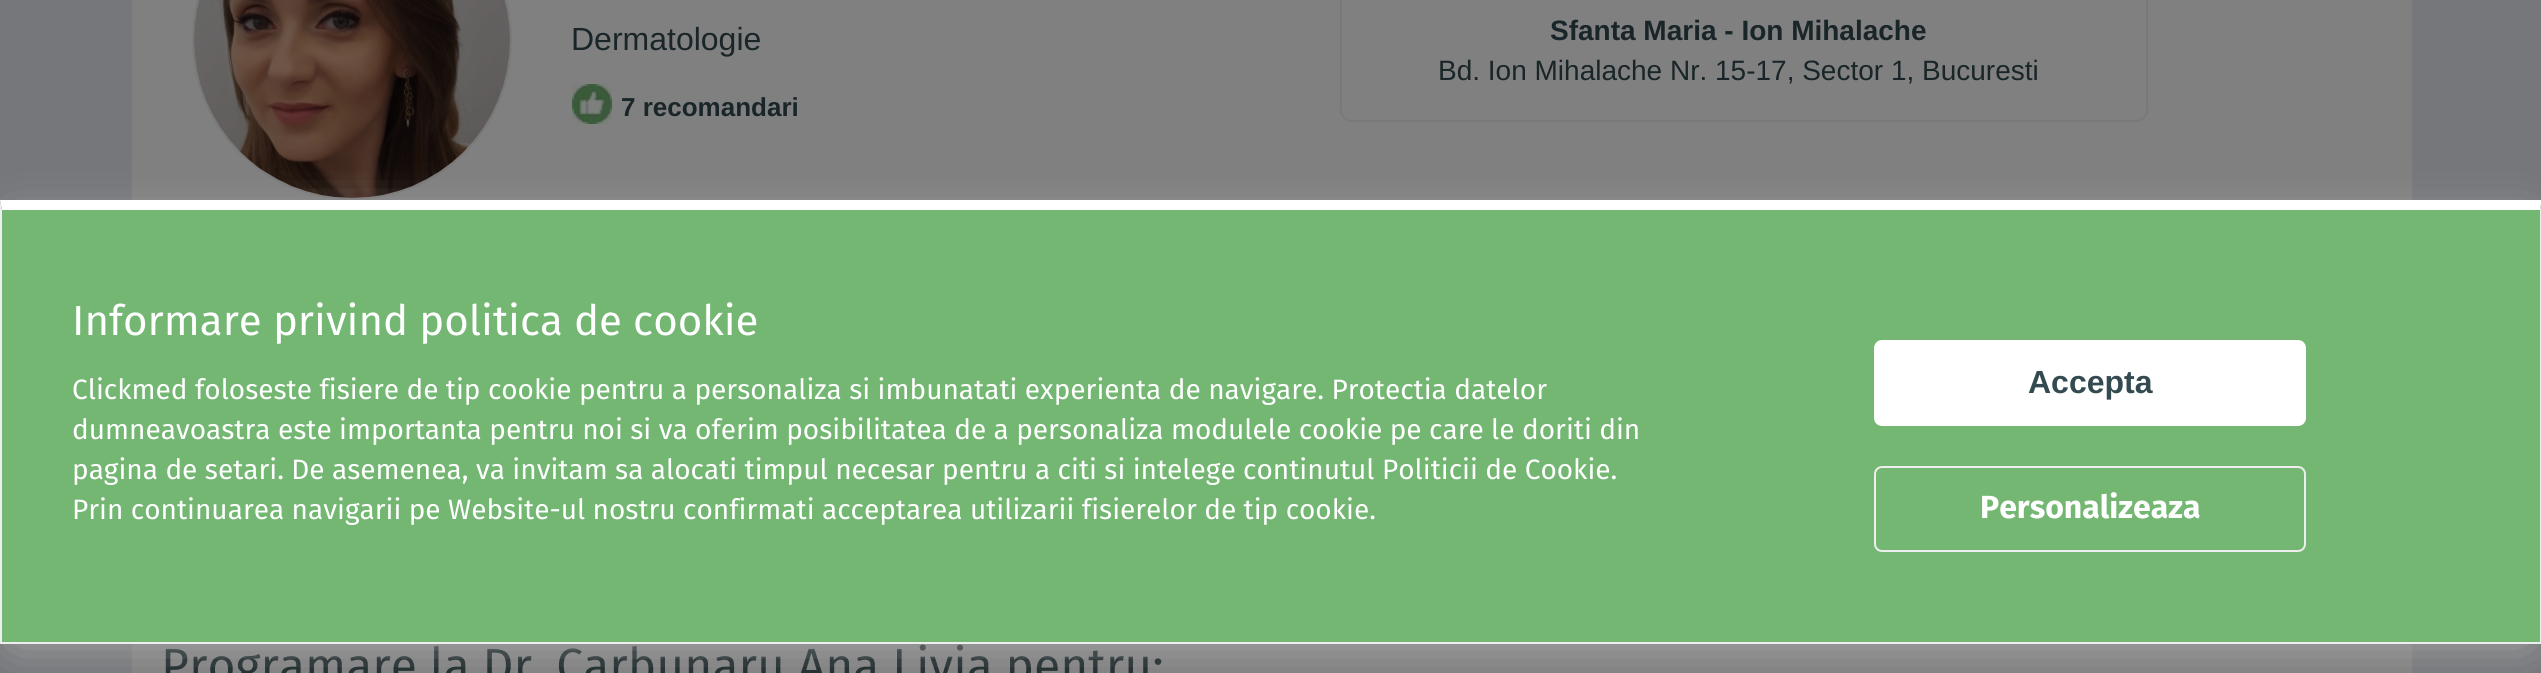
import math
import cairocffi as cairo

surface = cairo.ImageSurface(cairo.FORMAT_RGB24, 2541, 673)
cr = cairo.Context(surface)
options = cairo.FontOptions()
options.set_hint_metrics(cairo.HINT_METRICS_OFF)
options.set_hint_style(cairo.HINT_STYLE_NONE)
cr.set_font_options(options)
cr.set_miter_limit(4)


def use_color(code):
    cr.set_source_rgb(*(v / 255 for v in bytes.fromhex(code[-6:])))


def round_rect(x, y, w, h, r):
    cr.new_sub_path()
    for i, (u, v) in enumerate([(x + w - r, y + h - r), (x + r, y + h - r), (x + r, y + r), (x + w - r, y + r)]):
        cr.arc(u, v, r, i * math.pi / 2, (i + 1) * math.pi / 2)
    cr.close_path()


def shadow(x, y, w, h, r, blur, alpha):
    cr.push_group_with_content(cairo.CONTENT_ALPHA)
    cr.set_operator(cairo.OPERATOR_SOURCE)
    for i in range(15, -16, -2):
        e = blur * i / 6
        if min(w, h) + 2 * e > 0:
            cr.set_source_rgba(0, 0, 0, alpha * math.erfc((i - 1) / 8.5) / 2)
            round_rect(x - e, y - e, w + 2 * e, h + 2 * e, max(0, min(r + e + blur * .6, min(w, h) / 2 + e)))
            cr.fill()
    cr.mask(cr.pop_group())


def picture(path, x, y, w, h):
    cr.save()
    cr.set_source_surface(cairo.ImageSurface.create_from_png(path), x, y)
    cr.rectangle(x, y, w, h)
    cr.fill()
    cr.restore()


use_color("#76777a")
cr.paint()
use_color("#808080")
cr.rectangle(132, 0, 2280, 200)
cr.fill()
cr.arc(352, 40, 159, 0, 2 * math.pi)
use_color("#797979")
cr.stroke()
picture("img1.png", 194, 0, 316, 198)
cr.select_font_face("Liberation Sans")
cr.set_font_size(32)
use_color("#192528")
cr.move_to(571, 50)
cr.show_text("Dermatologie")
picture("img2.png", 572, 84, 40, 40)
cr.select_font_face("Liberation Sans", cairo.FONT_SLANT_NORMAL, cairo.FONT_WEIGHT_BOLD)
cr.set_font_size(26)
cr.move_to(621, 116)
cr.show_text("7 recomandari")
round_rect(1341, -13, 806, 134, 11)
use_color("#797979")
cr.stroke()
cr.set_font_size(28)
use_color("#192528")
cr.move_to(1550, 40)
cr.show_text("Sfanta Maria - Ion Mihalache")
cr.select_font_face("Liberation Sans")
cr.move_to(1438, 80)
cr.show_text("Bd. Ion Mihalache Nr. 15-17, Sector 1, Bucuresti")
use_color("#808080")
cr.rectangle(132, 644, 2280, 29)
cr.fill()
cr.select_font_face("Fira Sans")
cr.set_font_size(48)
use_color("#192528")
cr.move_to(161, 682)
cr.show_text("Programare la Dr. Carbunaru Ana Livia pentru:")
use_color("#b2b2b2")
shadow(16, 226, 2510, 412, 0, 25, 1)
use_color("#73b773")
cr.rectangle(2, 210, 2538, 432)
cr.fill()
use_color("#ffffff")
cr.new_path()
cr.move_to(0, 200)
cr.line_to(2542, 200)
cr.line_to(2540, 210)
cr.line_to(2, 210)
cr.close_path()
cr.fill()
use_color("#eeeeee")
cr.new_path()
cr.move_to(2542, 200)
cr.line_to(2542, 644)
cr.line_to(2540, 642)
cr.line_to(2540, 210)
cr.close_path()
cr.fill()
cr.rectangle(0, 642, 2541, 2)
cr.fill()
cr.new_path()
cr.move_to(0, 644)
cr.line_to(0, 200)
cr.line_to(2, 210)
cr.line_to(2, 642)
cr.close_path()
cr.fill()
cr.set_font_size(42)
use_color("#ffffff")
cr.move_to(72, 335)
cr.show_text("Informare privind politica de cookie")
cr.set_font_size(28)
cr.move_to(72, 399)
cr.show_text("Clickmed foloseste fisiere de tip cookie pentru a personaliza si imbunatati experienta de navigare. Protectia datelor")
cr.move_to(72, 439)
cr.show_text("dumneavoastra este importanta pentru noi si va oferim posibilitatea de a personaliza modulele cookie pe care le doriti din")
cr.move_to(72, 479)
cr.show_text("pagina de setari. De asemenea, va invitam sa alocati timpul necesar pentru a citi si intelege continutul Politicii de Cookie.")
cr.move_to(72, 519)
cr.show_text("Prin continuarea navigarii pe Website-ul nostru confirmati acceptarea utilizarii fisierelor de tip cookie.")
round_rect(1874, 340, 432, 86, 8)
cr.fill()
cr.select_font_face("Liberation Sans", cairo.FONT_SLANT_NORMAL, cairo.FONT_WEIGHT_BOLD)
cr.set_font_size(32)
use_color("#324a50")
cr.move_to(2028, 393)
cr.show_text("Accepta")
round_rect(1875, 467, 430, 84, 7)
use_color("#eeeeee")
cr.stroke()
cr.select_font_face("Fira Sans", cairo.FONT_SLANT_NORMAL, cairo.FONT_WEIGHT_BOLD)
use_color("#ffffff")
cr.move_to(1980, 518)
cr.show_text("Personalizeaza")
surface.write_to_png("result.png")
